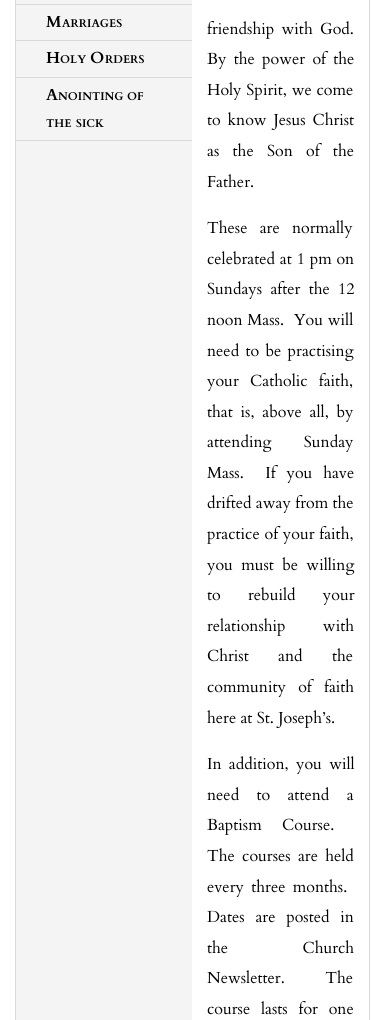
import math
import cairocffi as cairo

surface = cairo.ImageSurface(cairo.FORMAT_RGB24, 385, 1020)
cr = cairo.Context(surface)
options = cairo.FontOptions()
options.set_hint_metrics(cairo.HINT_METRICS_OFF)
options.set_hint_style(cairo.HINT_STYLE_NONE)
cr.set_font_options(options)
cr.set_miter_limit(4)


def use_color(code):
    cr.set_source_rgb(*(v / 255 for v in bytes.fromhex(code[-6:])))


def spaced_text(x, y, s, letter, word):
    cr.move_to(x, y)
    for ch in s:
        cr.show_text(ch)
        cr.rel_move_to(letter + word * (ch == ' '), 0)


use_color("#ffffff")
cr.paint()
cr.rectangle(15.5, -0.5, 354, 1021)
use_color("#d9d9d9")
cr.set_line_width(1)
cr.stroke()
use_color("#f4f4f4")
cr.rectangle(16, 0, 176, 1020)
cr.fill()
use_color("#d9d9d9")
cr.rectangle(16, 4, 176, 1)
cr.fill()
cr.rectangle(16, 40, 176, 1)
cr.fill()
cr.select_font_face("Cardo", cairo.FONT_SLANT_NORMAL, cairo.FONT_WEIGHT_BOLD)
cr.set_font_size(16)
use_color("#000000")
cr.move_to(46, 27)
cr.show_text("M")
cr.set_font_size(11.25)
cr.move_to(62, 27)
cr.show_text("ARRIAGES")
use_color("#d9d9d9")
cr.rectangle(16, 77, 176, 1)
cr.fill()
cr.set_font_size(16)
use_color("#000000")
cr.move_to(46, 63)
cr.show_text("H")
cr.set_font_size(11.25)
cr.move_to(60, 63)
cr.show_text("OLY")
cr.set_font_size(16)
cr.move_to(90, 63)
cr.show_text("O")
cr.set_font_size(11.25)
cr.move_to(105, 63)
cr.show_text("RDERS")
cr.set_font_size(16)
cr.move_to(46, 100)
cr.show_text("A")
cr.set_font_size(11.25)
cr.move_to(58, 100)
cr.show_text("NOINTING")
cr.move_to(127, 100)
cr.show_text("OF")
cr.move_to(46, 127)
cr.show_text("THE")
cr.move_to(76, 127)
cr.show_text("SICK")
use_color("#d9d9d9")
cr.rectangle(16, 140, 176, 1)
cr.fill()
cr.select_font_face("Cardo")
cr.set_font_size(16)
use_color("#000000")
spaced_text(207, 34, "friendship with God.", 0, 3)
spaced_text(207, 64, "By the power of the", 0, 3)
spaced_text(207, 95, "Holy Spirit, we come", 0, 0.5)
spaced_text(207, 125, "to know Jesus Christ", 0, 2.5)
spaced_text(207, 156, "as the Son of the", 0, 9)
cr.move_to(207, 187)
cr.show_text("Father.")
spaced_text(207, 233, "These are normally", 0, 8)
spaced_text(207, 264, "celebrated at 1 pm on", 0, 0.5)
spaced_text(207, 294, "Sundays after the 12", 0, 4)
spaced_text(207, 325, "noon Mass.  You will", 0, 0.5)
spaced_text(207, 356, "need to be practising", 0, 2)
spaced_text(207, 386, "your Catholic faith,", 0, 7)
spaced_text(207, 417, "that is, above all, by", 0, 3.5)
spaced_text(207, 447, "attending Sunday", 0, 28)
spaced_text(207, 478, "Mass.  If you have", 0, 6.5)
cr.move_to(207, 508)
cr.show_text("drifted away from the")
spaced_text(207, 539, "practice of your faith,", 0, 0.5)
spaced_text(207, 570, "you must be willing", 0, 4)
spaced_text(207, 600, "to rebuild your", 0, 23)
spaced_text(207, 631, "relationship with", 0, 33)
spaced_text(207, 661, "Christ and the", 0, 25)
spaced_text(207, 692, "community of faith", 0, 8)
cr.move_to(207, 723)
cr.show_text("here at St. Joseph’s.")
spaced_text(207, 769, "In addition, you will", 0, 3)
spaced_text(207, 800, "need to attend a", 0, 13)
spaced_text(207, 830, "Baptism Course.", 0, 16)
spaced_text(207, 861, "The courses are held", 0, 3)
spaced_text(207, 892, "every three months.", 0, 3)
spaced_text(207, 922, "Dates are posted in", 0, 6.5)
spaced_text(207, 953, "the Church", 0, 70)
spaced_text(207, 983, "Newsletter.  The", 0, 16)
spaced_text(207, 1014, "course lasts for one", 0, 6.5)
surface.write_to_png("result.png")
